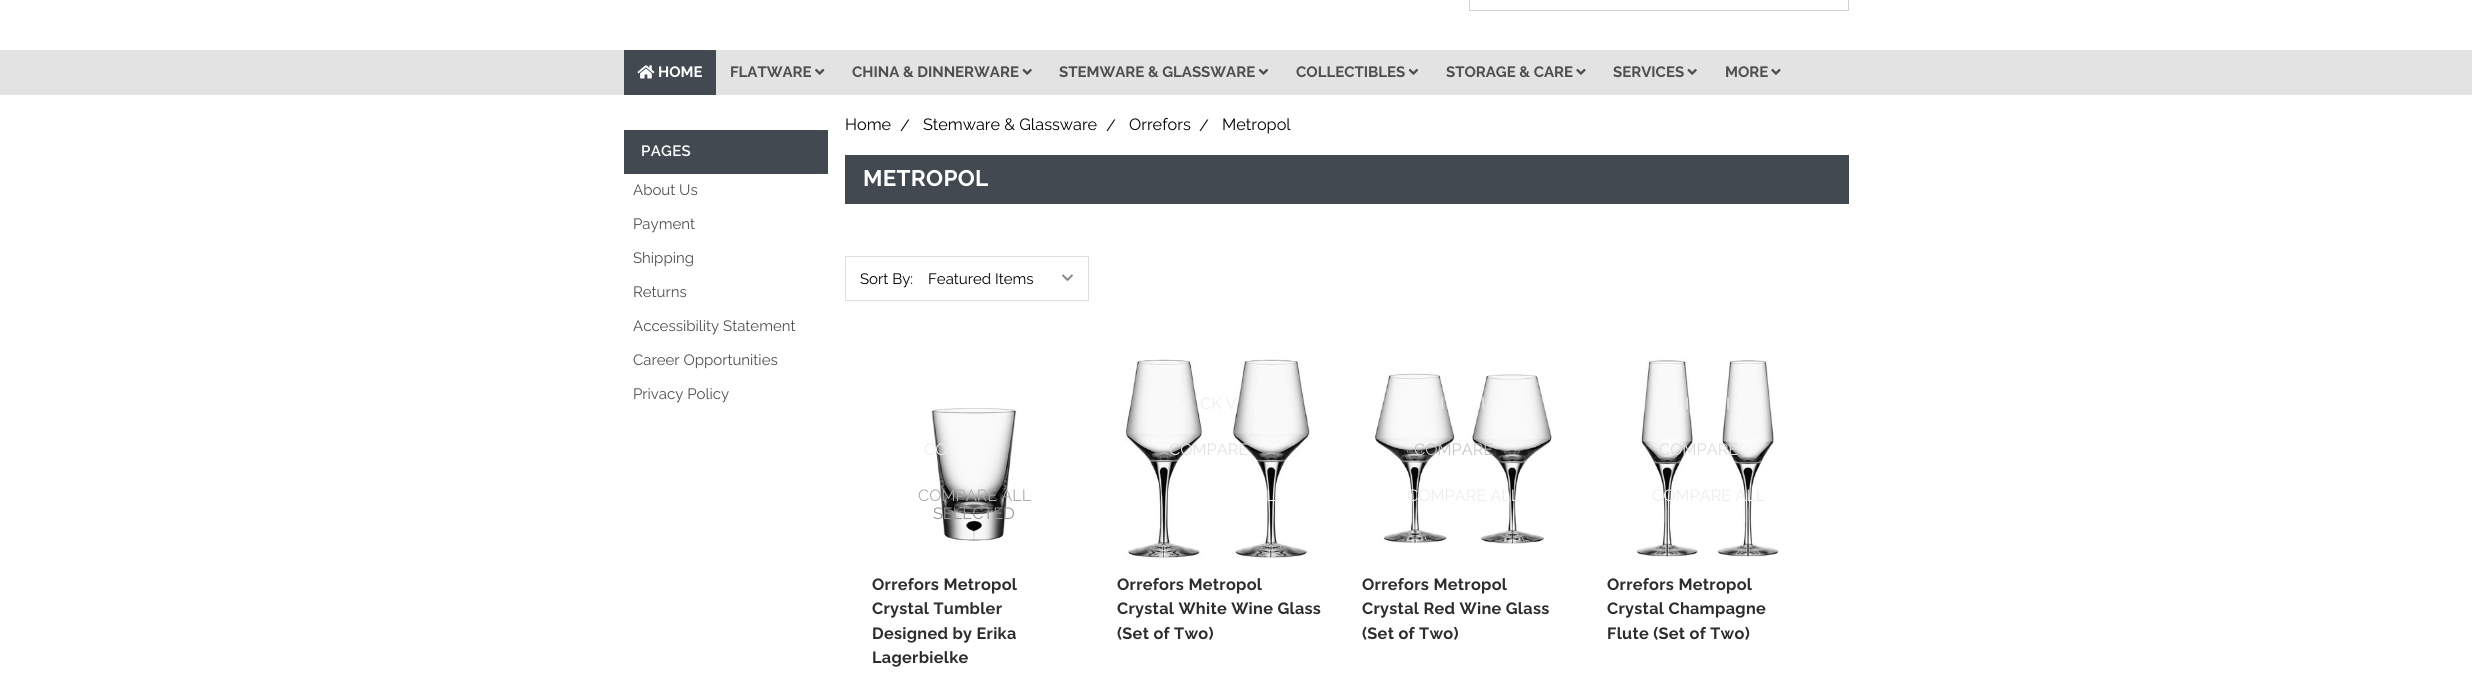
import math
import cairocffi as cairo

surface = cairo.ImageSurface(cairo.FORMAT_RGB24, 2472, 679)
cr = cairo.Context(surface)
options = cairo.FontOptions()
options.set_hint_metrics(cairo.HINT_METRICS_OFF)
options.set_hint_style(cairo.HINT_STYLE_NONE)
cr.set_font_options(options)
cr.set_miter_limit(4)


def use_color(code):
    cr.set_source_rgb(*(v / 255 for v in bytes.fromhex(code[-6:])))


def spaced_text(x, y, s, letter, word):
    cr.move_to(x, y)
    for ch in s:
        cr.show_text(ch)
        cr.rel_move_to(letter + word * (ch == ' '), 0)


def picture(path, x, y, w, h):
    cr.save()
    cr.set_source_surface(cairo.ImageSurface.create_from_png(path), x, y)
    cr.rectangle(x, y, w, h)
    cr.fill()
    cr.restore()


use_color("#ffffff")
cr.paint()
cr.rectangle(1469.5, -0.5, 379, 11)
use_color("#cdd2d5")
cr.set_line_width(1)
cr.stroke()
use_color("#e3e3e3")
cr.rectangle(0, 50, 2472, 45)
cr.fill()
use_color("#424951")
cr.rectangle(624, 50, 92, 45)
cr.fill()
picture("img1.png", 637, 65, 18, 14)
cr.select_font_face("Raleway", cairo.FONT_SLANT_NORMAL, cairo.FONT_WEIGHT_BOLD)
cr.set_font_size(15)
use_color("#ffffff")
cr.move_to(658, 77)
cr.show_text("HOME")
use_color("#4f4f4f")
cr.move_to(730, 77)
cr.show_text("FLATWARE")
picture("img2.png", 815, 68, 10, 7)
cr.move_to(852, 77)
cr.show_text("CHINA & DINNERWARE")
picture("img3.png", 1022, 68, 10, 7)
cr.move_to(1059, 77)
cr.show_text("STEMWARE & GLASSWARE")
picture("img4.png", 1258, 68, 11, 7)
cr.move_to(1296, 77)
cr.show_text("COLLECTIBLES")
picture("img4.png", 1408, 68, 11, 7)
cr.move_to(1446, 77)
cr.show_text("STORAGE & CARE")
picture("img5.png", 1576, 68, 10, 7)
cr.move_to(1613, 77)
cr.show_text("SERVICES")
picture("img3.png", 1687, 68, 10, 7)
cr.move_to(1725, 77)
cr.show_text("MORE")
picture("img5.png", 1771, 68, 10, 7)
use_color("#424951")
cr.rectangle(624, 130, 204, 44)
cr.fill()
cr.select_font_face("Raleway SemiBold")
use_color("#ffffff")
spaced_text(641, 156, "PAGES", 0.3, 0)
cr.select_font_face("Raleway")
use_color("#4f4f4f")
cr.move_to(633, 195)
cr.show_text("About Us")
cr.move_to(633, 229)
cr.show_text("Payment")
cr.move_to(633, 263)
cr.show_text("Shipping")
cr.move_to(633, 297)
cr.show_text("Returns")
cr.move_to(633, 331)
cr.show_text("Accessibility Statement")
cr.move_to(633, 365)
cr.show_text("Career Opportunities")
cr.move_to(633, 399)
cr.show_text("Privacy Policy")
cr.set_font_size(16.25)
use_color("#000000")
cr.move_to(845, 130)
cr.show_text("Home")
cr.move_to(900, 131)
cr.show_text("/")
cr.move_to(923, 130)
cr.show_text("Stemware & Glassware")
cr.move_to(1106, 131)
cr.show_text("/")
cr.move_to(1129, 130)
cr.show_text("Orrefors")
cr.move_to(1199, 131)
cr.show_text("/")
cr.move_to(1222, 130)
cr.show_text("Metropol")
use_color("#424951")
cr.rectangle(845, 155, 1004, 49)
cr.fill()
cr.select_font_face("Raleway", cairo.FONT_SLANT_NORMAL, cairo.FONT_WEIGHT_BOLD)
cr.set_font_size(22.5)
use_color("#ffffff")
spaced_text(863, 186, "METROPOL", 0.3, 0)
cr.rectangle(845.5, 256.5, 243, 44)
use_color("#dfdfdf")
cr.stroke()
cr.select_font_face("Raleway")
cr.set_font_size(15)
use_color("#000000")
cr.move_to(860, 284)
cr.show_text("Sort By:")
picture("img6.png", 1062, 274, 11, 8)
cr.move_to(928, 284)
cr.show_text("Featured Items")
picture("img7.png", 931, 408, 86, 133)
cr.set_font_size(16.25)
use_color("#ededed")
cr.move_to(924, 455)
cr.show_text("CO")
use_color("#acacac")
cr.move_to(918, 501)
cr.show_text("COMPARE ALL")
use_color("#969696")
cr.move_to(933, 519)
cr.show_text("SELECTED")
cr.select_font_face("Raleway", cairo.FONT_SLANT_NORMAL, cairo.FONT_WEIGHT_BOLD)
use_color("#2d2d2d")
spaced_text(872, 590, "Orrefors Metropol", 0.3, 0)
spaced_text(872, 614, "Crystal Tumbler", 0.3, 0)
spaced_text(872, 639, "Designed by Erika", 0.3, 0)
spaced_text(872, 663, "Lagerbielke", 0.3, 0)
picture("img8.png", 1124, 359, 186, 199)
cr.select_font_face("Raleway")
use_color("#ededed")
cr.move_to(1200, 409)
cr.show_text("CK V")
use_color("#e2e2e2")
cr.move_to(1169, 455)
cr.show_text("COMPARE")
use_color("#ededed")
cr.move_to(1266, 501)
cr.show_text("L")
cr.select_font_face("Raleway", cairo.FONT_SLANT_NORMAL, cairo.FONT_WEIGHT_BOLD)
use_color("#2d2d2d")
spaced_text(1117, 590, "Orrefors Metropol", 0.3, 0)
spaced_text(1117, 614, "Crystal White Wine Glass", 0.3, 0)
spaced_text(1117, 639, "(Set of Two)", 0.3, 0)
picture("img9.png", 1375, 373, 177, 171)
cr.select_font_face("Raleway")
use_color("#f3f3f3")
cr.move_to(1440, 409)
cr.show_text("I")
cr.move_to(1481, 409)
cr.show_text("I")
use_color("#c5c5c5")
cr.move_to(1414, 455)
cr.show_text("COMPARE")
use_color("#ededed")
cr.move_to(1407, 501)
cr.show_text("COMPARE ALL")
cr.select_font_face("Raleway", cairo.FONT_SLANT_NORMAL, cairo.FONT_WEIGHT_BOLD)
use_color("#2d2d2d")
spaced_text(1362, 590, "Orrefors Metropol", 0.3, 0)
spaced_text(1362, 614, "Crystal Red Wine Glass", 0.3, 0)
spaced_text(1362, 639, "(Set of Two)", 0.3, 0)
picture("img10.png", 1636, 359, 143, 198)
cr.select_font_face("Raleway")
use_color("#f3f3f3")
cr.move_to(1685, 409)
cr.show_text("I")
cr.move_to(1726, 409)
cr.show_text("I")
use_color("#dcdcdc")
cr.move_to(1659, 455)
cr.show_text("COMPARE")
use_color("#ededed")
cr.move_to(1652, 501)
cr.show_text("COMPARE ALL")
cr.select_font_face("Raleway", cairo.FONT_SLANT_NORMAL, cairo.FONT_WEIGHT_BOLD)
use_color("#2d2d2d")
spaced_text(1607, 590, "Orrefors Metropol", 0.3, 0)
spaced_text(1607, 614, "Crystal Champagne", 0.3, 0)
spaced_text(1607, 639, "Flute (Set of Two)", 0.3, 0)
surface.write_to_png("result.png")
